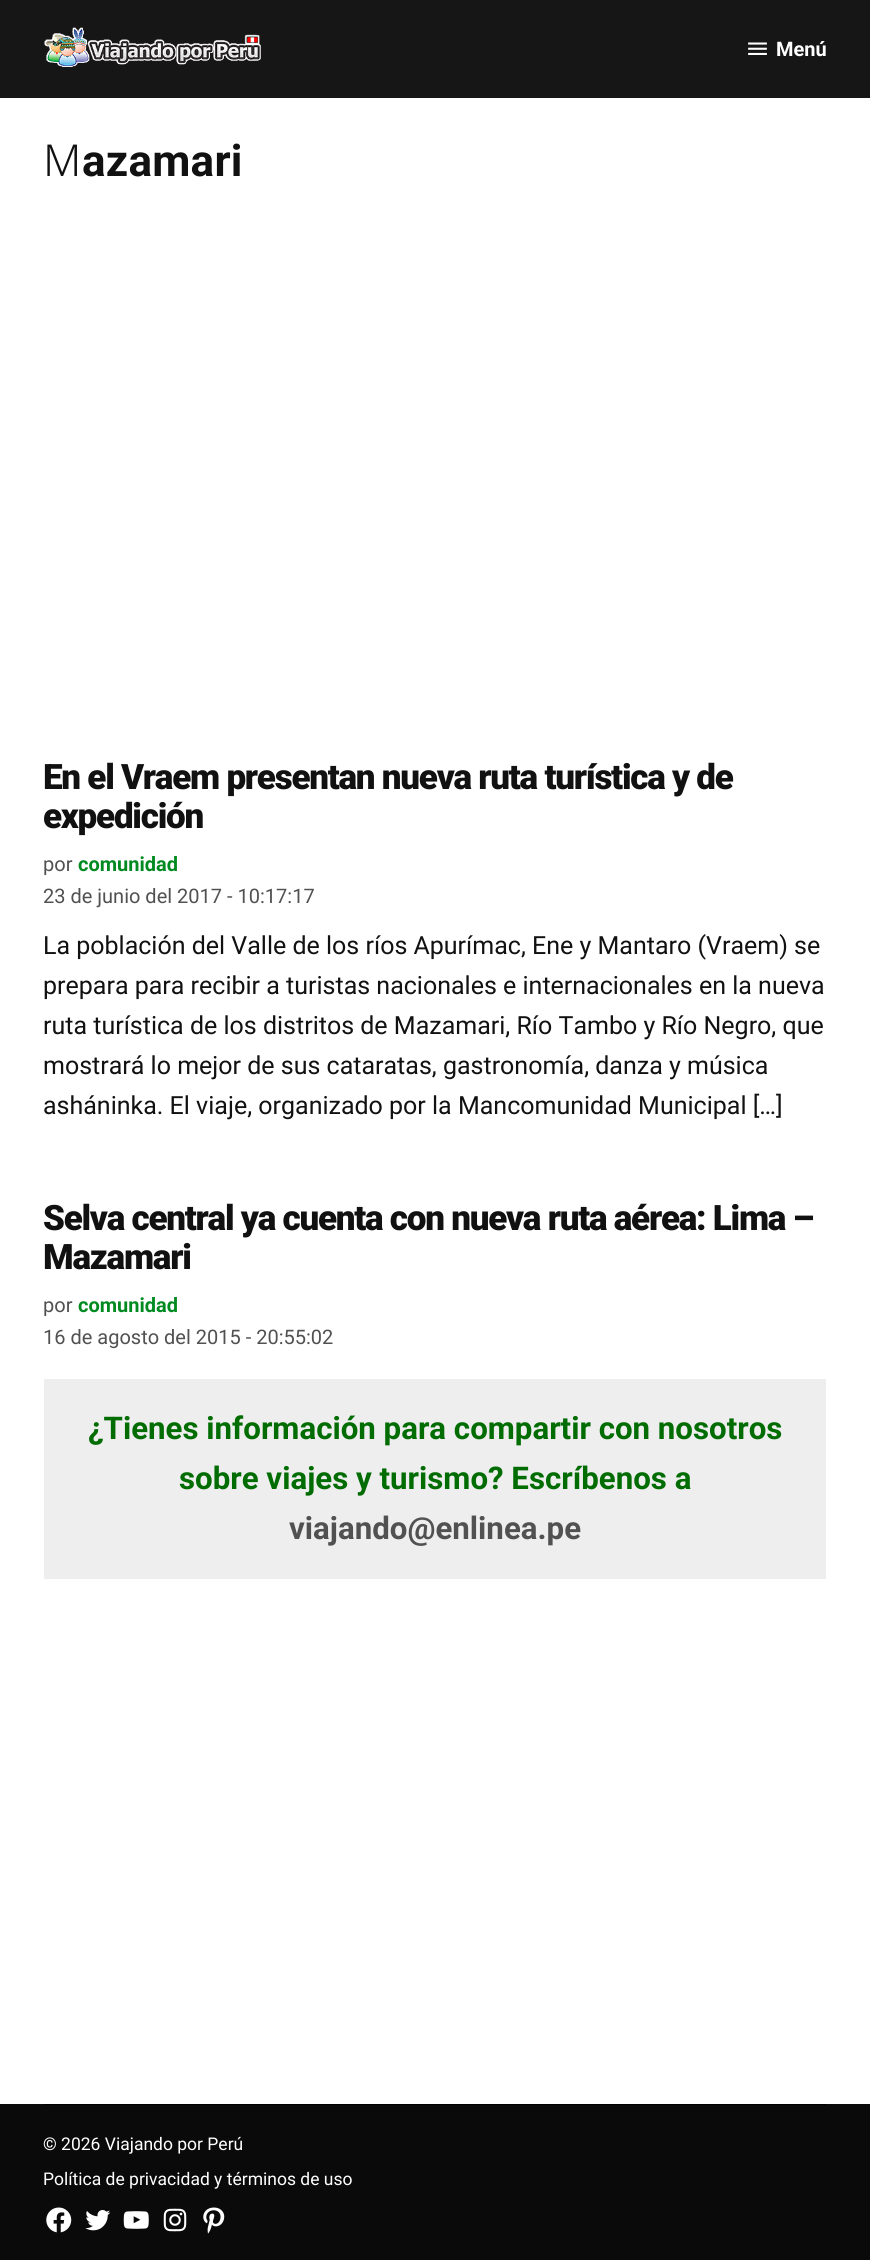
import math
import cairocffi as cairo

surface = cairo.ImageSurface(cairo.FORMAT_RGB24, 870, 2260)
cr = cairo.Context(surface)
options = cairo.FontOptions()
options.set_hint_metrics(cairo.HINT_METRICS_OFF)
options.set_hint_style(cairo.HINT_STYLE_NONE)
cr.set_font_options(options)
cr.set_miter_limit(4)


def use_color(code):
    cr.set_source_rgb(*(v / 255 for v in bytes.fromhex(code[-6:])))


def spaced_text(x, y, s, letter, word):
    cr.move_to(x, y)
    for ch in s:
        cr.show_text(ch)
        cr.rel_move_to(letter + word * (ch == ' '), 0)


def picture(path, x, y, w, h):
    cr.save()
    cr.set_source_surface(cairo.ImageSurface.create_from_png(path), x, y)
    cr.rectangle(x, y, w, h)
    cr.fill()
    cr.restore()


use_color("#ffffff")
cr.paint()
use_color("#161616")
cr.rectangle(0, 0, 870, 98)
cr.fill()
picture("img1.png", 44, 27, 217, 40)
picture("img2.png", 748, 42, 19, 13)
cr.select_font_face("Roboto", cairo.FONT_SLANT_NORMAL, cairo.FONT_WEIGHT_BOLD)
cr.set_font_size(20)
use_color("#ffffff")
cr.move_to(776, 56)
cr.show_text("Menú")
cr.select_font_face("Noto Sans Light")
cr.set_font_size(44)
use_color("#111111")
spaced_text(43, 176, "M", 0.25, 0)
cr.select_font_face("Roboto", cairo.FONT_SLANT_NORMAL, cairo.FONT_WEIGHT_BOLD)
spaced_text(82, 176, "azamari", 0.25, 0)
cr.select_font_face("Roboto Black")
cr.set_font_size(35)
spaced_text(43, 789, "En el Vraem presentan nueva ruta turística y de", -1.25, 0)
spaced_text(43, 828, "expedición", -1.25, 0)
cr.select_font_face("Roboto")
cr.set_font_size(20)
use_color("#515151")
cr.move_to(43, 871)
cr.show_text("por")
cr.select_font_face("Roboto", cairo.FONT_SLANT_NORMAL, cairo.FONT_WEIGHT_BOLD)
use_color("#008a20")
cr.move_to(78, 871)
cr.show_text("comunidad")
cr.select_font_face("Roboto")
use_color("#515151")
cr.move_to(43, 903)
cr.show_text("23 de junio del 2017 - 10:17:17")
cr.set_font_size(25)
use_color("#111111")
cr.move_to(43, 954)
cr.show_text("La población del Valle de los ríos Apurímac, Ene y Mantaro (Vraem) se")
cr.move_to(43, 994)
cr.show_text("prepara para recibir a turistas nacionales e internacionales en la nueva")
cr.move_to(43, 1034)
cr.show_text("ruta turística de los distritos de Mazamari, Río Tambo y Río Negro, que")
cr.move_to(43, 1074)
cr.show_text("mostrará lo mejor de sus cataratas, gastronomía, danza y música")
cr.move_to(43, 1114)
cr.show_text("asháninka. El viaje, organizado por la Mancomunidad Municipal […]")
cr.select_font_face("Roboto Black")
cr.set_font_size(35)
spaced_text(43, 1230, "Selva central ya cuenta con nueva ruta aérea: Lima –", -1.25, 0)
spaced_text(43, 1269, "Mazamari", -1.25, 0)
cr.select_font_face("Roboto")
cr.set_font_size(20)
use_color("#515151")
cr.move_to(43, 1312)
cr.show_text("por")
cr.select_font_face("Roboto", cairo.FONT_SLANT_NORMAL, cairo.FONT_WEIGHT_BOLD)
use_color("#008a20")
cr.move_to(78, 1312)
cr.show_text("comunidad")
cr.select_font_face("Roboto")
use_color("#515151")
cr.move_to(43, 1344)
cr.show_text("16 de agosto del 2015 - 20:55:02")
use_color("#eeeeee")
cr.rectangle(44, 1379, 782, 200)
cr.fill()
cr.select_font_face("Roboto", cairo.FONT_SLANT_NORMAL, cairo.FONT_WEIGHT_BOLD)
cr.set_font_size(31.25)
use_color("#006c02")
cr.move_to(88, 1439)
cr.show_text("¿Tienes información para compartir con nosotros")
cr.move_to(179, 1489)
cr.show_text("sobre viajes y turismo? Escríbenos a")
use_color("#515151")
cr.move_to(289, 1539)
cr.show_text("viajando@enlinea.pe")
use_color("#0a0a0a")
cr.rectangle(0, 2104, 870, 156)
cr.fill()
use_color("#000000")
cr.rectangle(44, 2104, 782, 1)
cr.fill()
cr.select_font_face("Roboto")
cr.set_font_size(17.5)
use_color("#ffffff")
cr.move_to(43, 2150)
cr.show_text("© 2026 Viajando por Perú")
cr.move_to(43, 2185)
cr.show_text("Política de privacidad y términos de uso")
picture("img3.png", 46, 2207, 26, 26)
picture("img4.png", 85, 2210, 26, 21)
picture("img5.png", 123, 2211, 26, 18)
picture("img6.png", 163, 2208, 24, 24)
picture("img7.png", 203, 2207, 22, 27)
surface.write_to_png("result.png")
